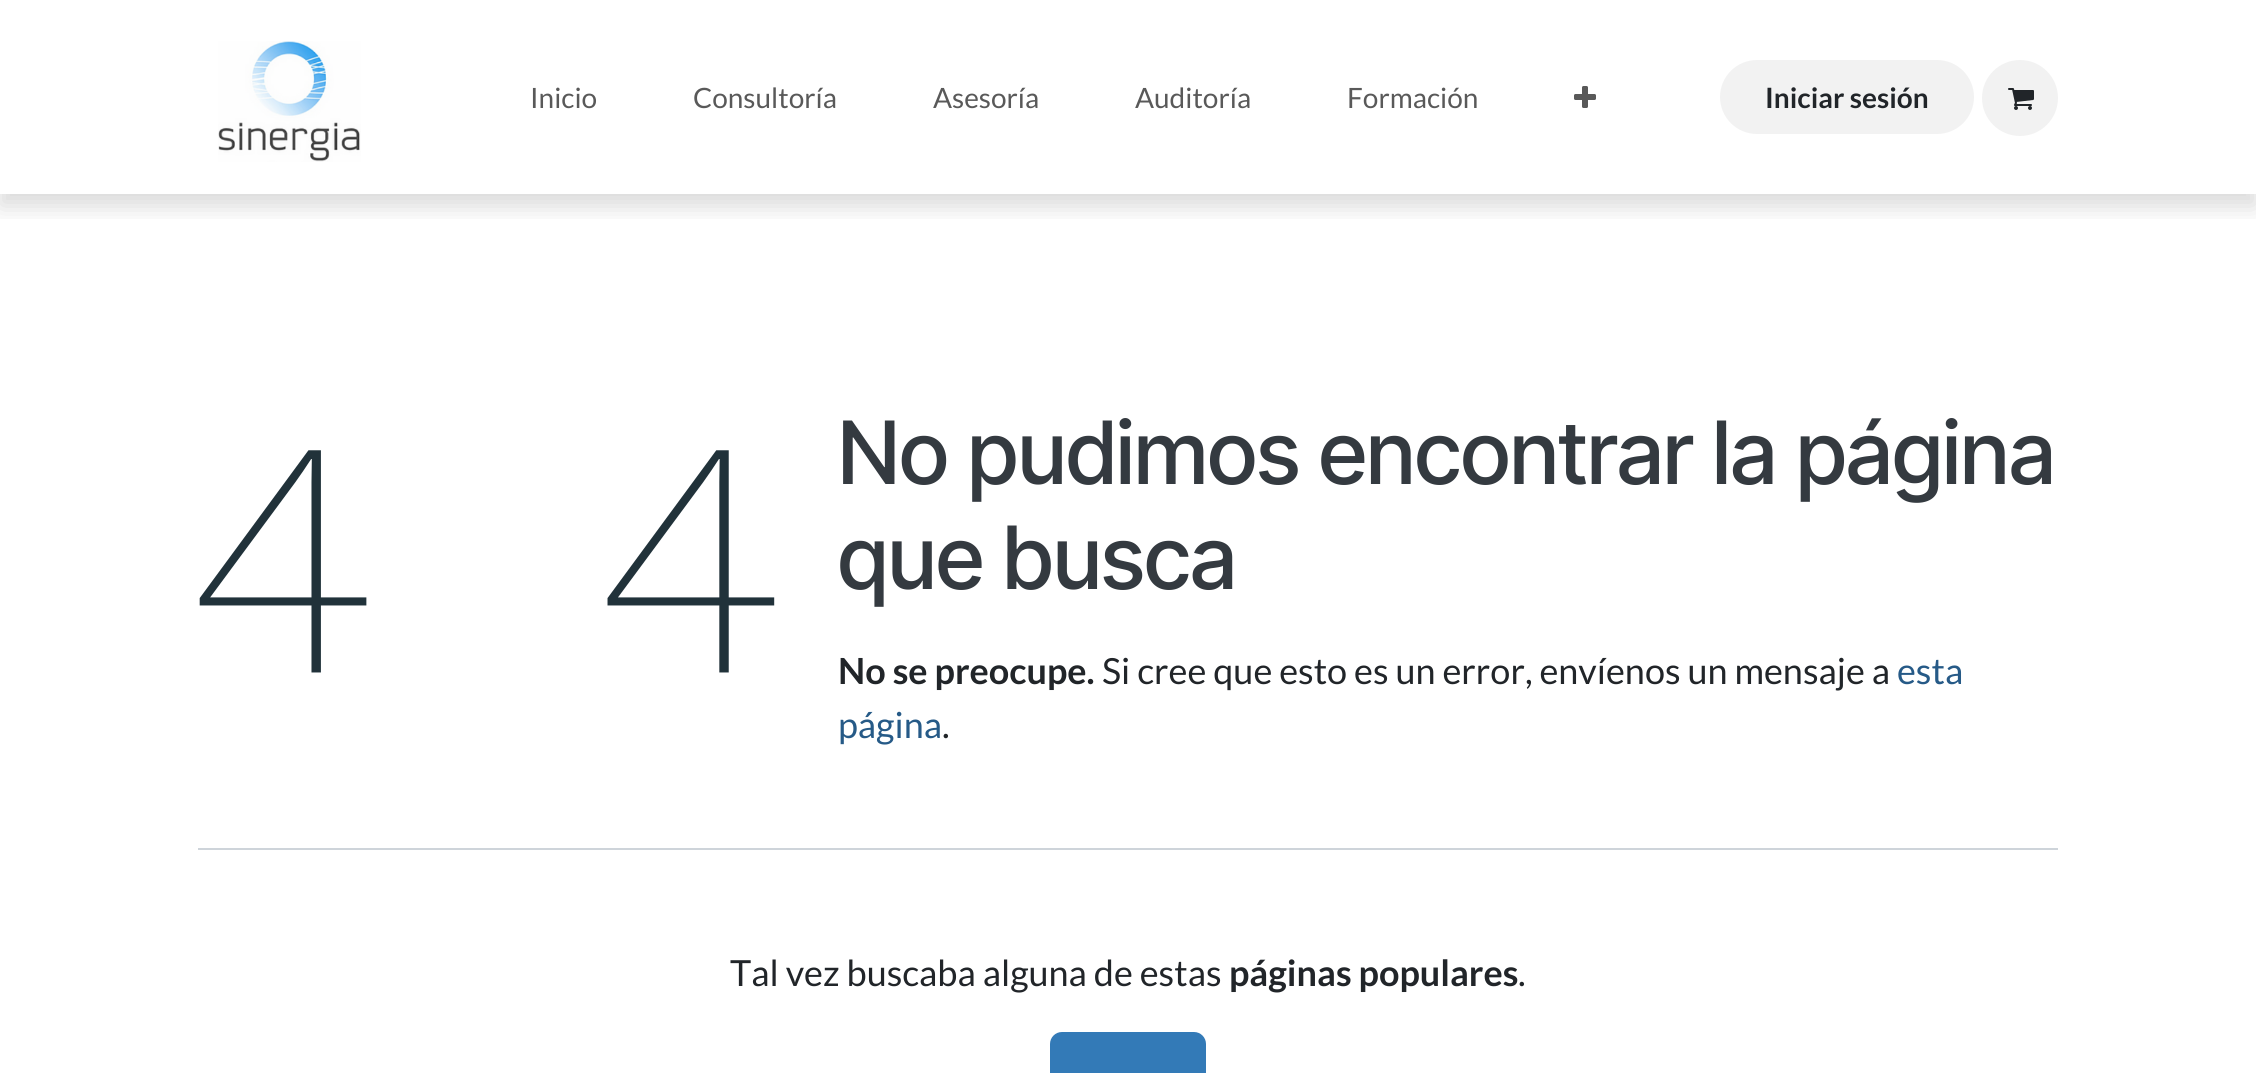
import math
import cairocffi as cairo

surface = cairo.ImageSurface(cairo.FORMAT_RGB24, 2256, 1073)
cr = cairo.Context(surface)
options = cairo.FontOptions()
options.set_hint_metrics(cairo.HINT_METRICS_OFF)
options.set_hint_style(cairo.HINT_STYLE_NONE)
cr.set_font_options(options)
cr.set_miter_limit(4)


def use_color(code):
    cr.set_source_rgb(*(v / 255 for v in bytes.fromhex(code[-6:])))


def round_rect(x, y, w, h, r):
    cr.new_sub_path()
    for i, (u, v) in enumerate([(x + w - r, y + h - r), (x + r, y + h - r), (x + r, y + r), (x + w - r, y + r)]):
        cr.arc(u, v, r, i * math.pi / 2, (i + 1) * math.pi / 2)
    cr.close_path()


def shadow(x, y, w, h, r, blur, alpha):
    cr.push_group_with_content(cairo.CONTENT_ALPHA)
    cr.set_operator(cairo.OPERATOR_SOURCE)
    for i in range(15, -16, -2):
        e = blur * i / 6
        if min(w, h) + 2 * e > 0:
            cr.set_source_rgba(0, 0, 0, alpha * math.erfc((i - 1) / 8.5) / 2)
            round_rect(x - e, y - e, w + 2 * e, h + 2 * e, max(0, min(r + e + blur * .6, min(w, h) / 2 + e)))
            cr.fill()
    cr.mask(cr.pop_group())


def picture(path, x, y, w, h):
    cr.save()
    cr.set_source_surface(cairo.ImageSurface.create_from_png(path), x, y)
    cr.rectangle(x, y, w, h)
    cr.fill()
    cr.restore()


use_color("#ffffff")
cr.paint()
cr.save()
cr.rectangle(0, 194, 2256, 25)
cr.clip()
use_color("#000000")
shadow(0, 12, 2256, 194, 0, 12, 0.15)
cr.restore()
picture("img1.png", 218, 41, 143, 121)
cr.select_font_face("Lato")
cr.set_font_size(28)
use_color("#595959")
cr.move_to(530, 108)
cr.show_text("Inicio")
cr.move_to(693, 108)
cr.show_text("Consultoría")
cr.move_to(933, 108)
cr.show_text("Asesoría")
cr.move_to(1135, 108)
cr.show_text("Auditoría")
cr.move_to(1347, 108)
cr.show_text("Formación")
picture("img2.png", 1574, 86, 22, 22)
use_color("#f2f2f2")
round_rect(1720, 60, 254, 74, 37)
cr.fill()
cr.select_font_face("Lato", cairo.FONT_SLANT_NORMAL, cairo.FONT_WEIGHT_BOLD)
use_color("#212529")
cr.move_to(1765, 108)
cr.show_text("Iniciar sesión")
use_color("#f2f2f2")
cr.new_path()
cr.arc(2020, 98, 38, 0, 2 * math.pi)
cr.fill()
picture("img3.png", 2008, 88, 26, 22)
picture("img4.png", 199, 450, 576, 223)
cr.select_font_face("Inter Tight Medium")
cr.set_font_size(87.25)
use_color("#343a40")
cr.move_to(838, 484)
cr.show_text("No pudimos encontrar la página")
cr.move_to(838, 589)
cr.show_text("que busca")
cr.select_font_face("Lato", cairo.FONT_SLANT_NORMAL, cairo.FONT_WEIGHT_BOLD)
cr.set_font_size(36)
use_color("#212529")
cr.move_to(838, 684)
cr.show_text("No se preocupe.")
cr.select_font_face("Lato")
cr.move_to(1102, 684)
cr.show_text("Si cree que esto es un error, envíenos un mensaje a")
use_color("#265a87")
cr.move_to(1897, 684)
cr.show_text("esta")
cr.move_to(838, 738)
cr.show_text("página")
use_color("#212529")
cr.move_to(942, 738)
cr.show_text(".")
use_color("#ced4da")
cr.rectangle(198, 848, 1860, 2)
cr.fill()
use_color("#212529")
cr.move_to(730, 986)
cr.show_text("Tal vez buscaba alguna de estas")
cr.select_font_face("Lato", cairo.FONT_SLANT_NORMAL, cairo.FONT_WEIGHT_BOLD)
cr.move_to(1229, 986)
cr.show_text("páginas populares")
cr.select_font_face("Lato")
cr.move_to(1518, 986)
cr.show_text(".")
use_color("#337ab7")
round_rect(1051, 1033, 154, 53, 11)
cr.fill_preserve()
cr.stroke()
surface.write_to_png("result.png")
